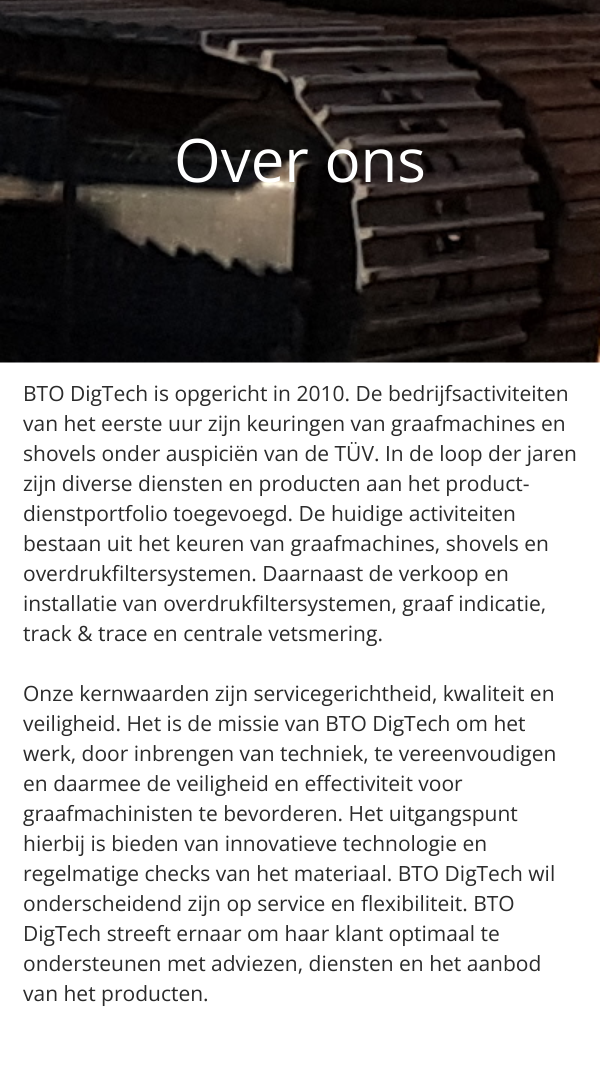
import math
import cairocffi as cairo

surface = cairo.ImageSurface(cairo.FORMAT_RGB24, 600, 1091)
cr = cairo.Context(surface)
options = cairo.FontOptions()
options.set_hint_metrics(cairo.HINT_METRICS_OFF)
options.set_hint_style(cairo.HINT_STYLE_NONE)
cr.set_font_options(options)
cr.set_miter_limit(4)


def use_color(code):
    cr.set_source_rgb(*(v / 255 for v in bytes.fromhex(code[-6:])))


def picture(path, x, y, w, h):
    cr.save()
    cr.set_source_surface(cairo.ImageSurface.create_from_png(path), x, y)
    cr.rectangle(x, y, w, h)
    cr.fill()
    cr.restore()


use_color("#ffffff")
cr.paint()
picture("img1.png", 0, 0, 600, 363)
cr.select_font_face("Open Sans")
cr.set_font_size(60)
use_color("#ffffff")
cr.move_to(174, 182)
cr.show_text("Over ons")
cr.set_font_size(21)
use_color("#2b2b2b")
cr.move_to(23, 401)
cr.show_text("BTO DigTech is opgericht in 2010. De bedrijfsactiviteiten")
cr.move_to(23, 431)
cr.show_text("van het eerste uur zijn keuringen van graafmachines en")
cr.move_to(23, 461)
cr.show_text("shovels onder auspiciën van de TÜV. In de loop der jaren")
cr.move_to(23, 491)
cr.show_text("zijn diverse diensten en producten aan het product-")
cr.move_to(23, 521)
cr.show_text("dienstportfolio toegevoegd. De huidige activiteiten")
cr.move_to(23, 551)
cr.show_text("bestaan uit het keuren van graafmachines, shovels en")
cr.move_to(23, 581)
cr.show_text("overdrukfiltersystemen. Daarnaast de verkoop en")
cr.move_to(23, 611)
cr.show_text("installatie van overdrukfiltersystemen, graaf indicatie,")
cr.move_to(23, 641)
cr.show_text("track & trace en centrale vetsmering.")
cr.move_to(23, 701)
cr.show_text("Onze kernwaarden zijn servicegerichtheid, kwaliteit en")
cr.move_to(23, 731)
cr.show_text("veiligheid. Het is de missie van BTO DigTech om het")
cr.move_to(23, 761)
cr.show_text("werk, door inbrengen van techniek, te vereenvoudigen")
cr.move_to(23, 791)
cr.show_text("en daarmee de veiligheid en effectiviteit voor")
cr.move_to(23, 821)
cr.show_text("graafmachinisten te bevorderen. Het uitgangspunt")
cr.move_to(23, 851)
cr.show_text("hierbij is bieden van innovatieve technologie en")
cr.move_to(23, 881)
cr.show_text("regelmatige checks van het materiaal. BTO DigTech wil")
cr.move_to(23, 911)
cr.show_text("onderscheidend zijn op service en flexibiliteit. BTO")
cr.move_to(23, 941)
cr.show_text("DigTech streeft ernaar om haar klant optimaal te")
cr.move_to(23, 971)
cr.show_text("ondersteunen met adviezen, diensten en het aanbod")
cr.move_to(23, 1001)
cr.show_text("van het producten.")
surface.write_to_png("result.png")
